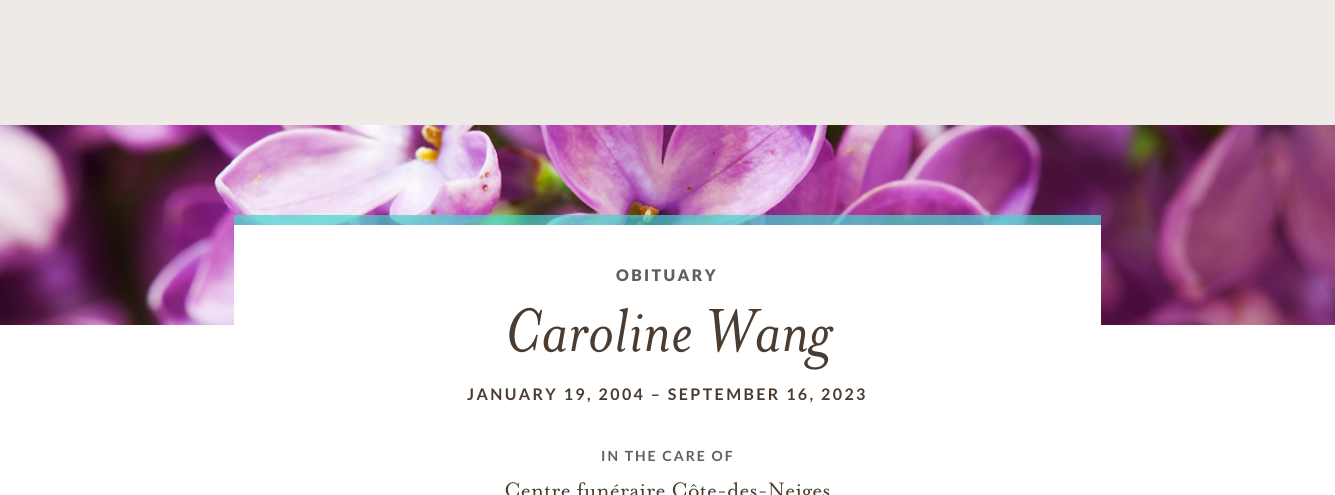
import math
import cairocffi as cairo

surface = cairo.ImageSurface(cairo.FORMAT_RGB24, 1335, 495)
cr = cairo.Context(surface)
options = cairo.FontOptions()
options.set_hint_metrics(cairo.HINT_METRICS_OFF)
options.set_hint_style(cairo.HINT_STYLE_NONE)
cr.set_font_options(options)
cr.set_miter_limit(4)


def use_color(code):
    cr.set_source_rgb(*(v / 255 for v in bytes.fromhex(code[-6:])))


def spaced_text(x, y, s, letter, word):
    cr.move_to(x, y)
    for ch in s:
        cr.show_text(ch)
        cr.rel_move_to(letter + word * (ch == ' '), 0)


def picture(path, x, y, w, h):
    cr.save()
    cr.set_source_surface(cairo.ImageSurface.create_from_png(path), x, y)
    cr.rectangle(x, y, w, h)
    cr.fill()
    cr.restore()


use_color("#ffffff")
cr.paint()
use_color("#eeebe6")
cr.rectangle(0, 0, 1335, 125)
cr.fill()
picture("img1.png", 0, 125, 1335, 200)
use_color("#ffffff")
cr.rectangle(234, 225, 867, 100)
cr.fill()
cr.set_source_rgba(0.278, 0.835, 0.804, 0.7)
cr.rectangle(234, 215, 867, 10)
cr.fill()
cr.select_font_face("Lato Black")
cr.set_font_size(16)
use_color("#605f5e")
spaced_text(616, 281, "OBITUARY", 2.4, 0)
picture("img2.png", 509, 307, 325, 63)
cr.select_font_face("Lato", cairo.FONT_SLANT_NORMAL, cairo.FONT_WEIGHT_BOLD)
use_color("#4a3c31")
spaced_text(467, 400, "JANUARY 19, 2004 – SEPTEMBER 16, 2023", 2.4, 0)
cr.set_font_size(14)
use_color("#605f5e")
spaced_text(601, 461, "IN THE CARE OF", 2, 0)
picture("img3.png", 505, 482, 325, 13)
surface.write_to_png("result.png")
